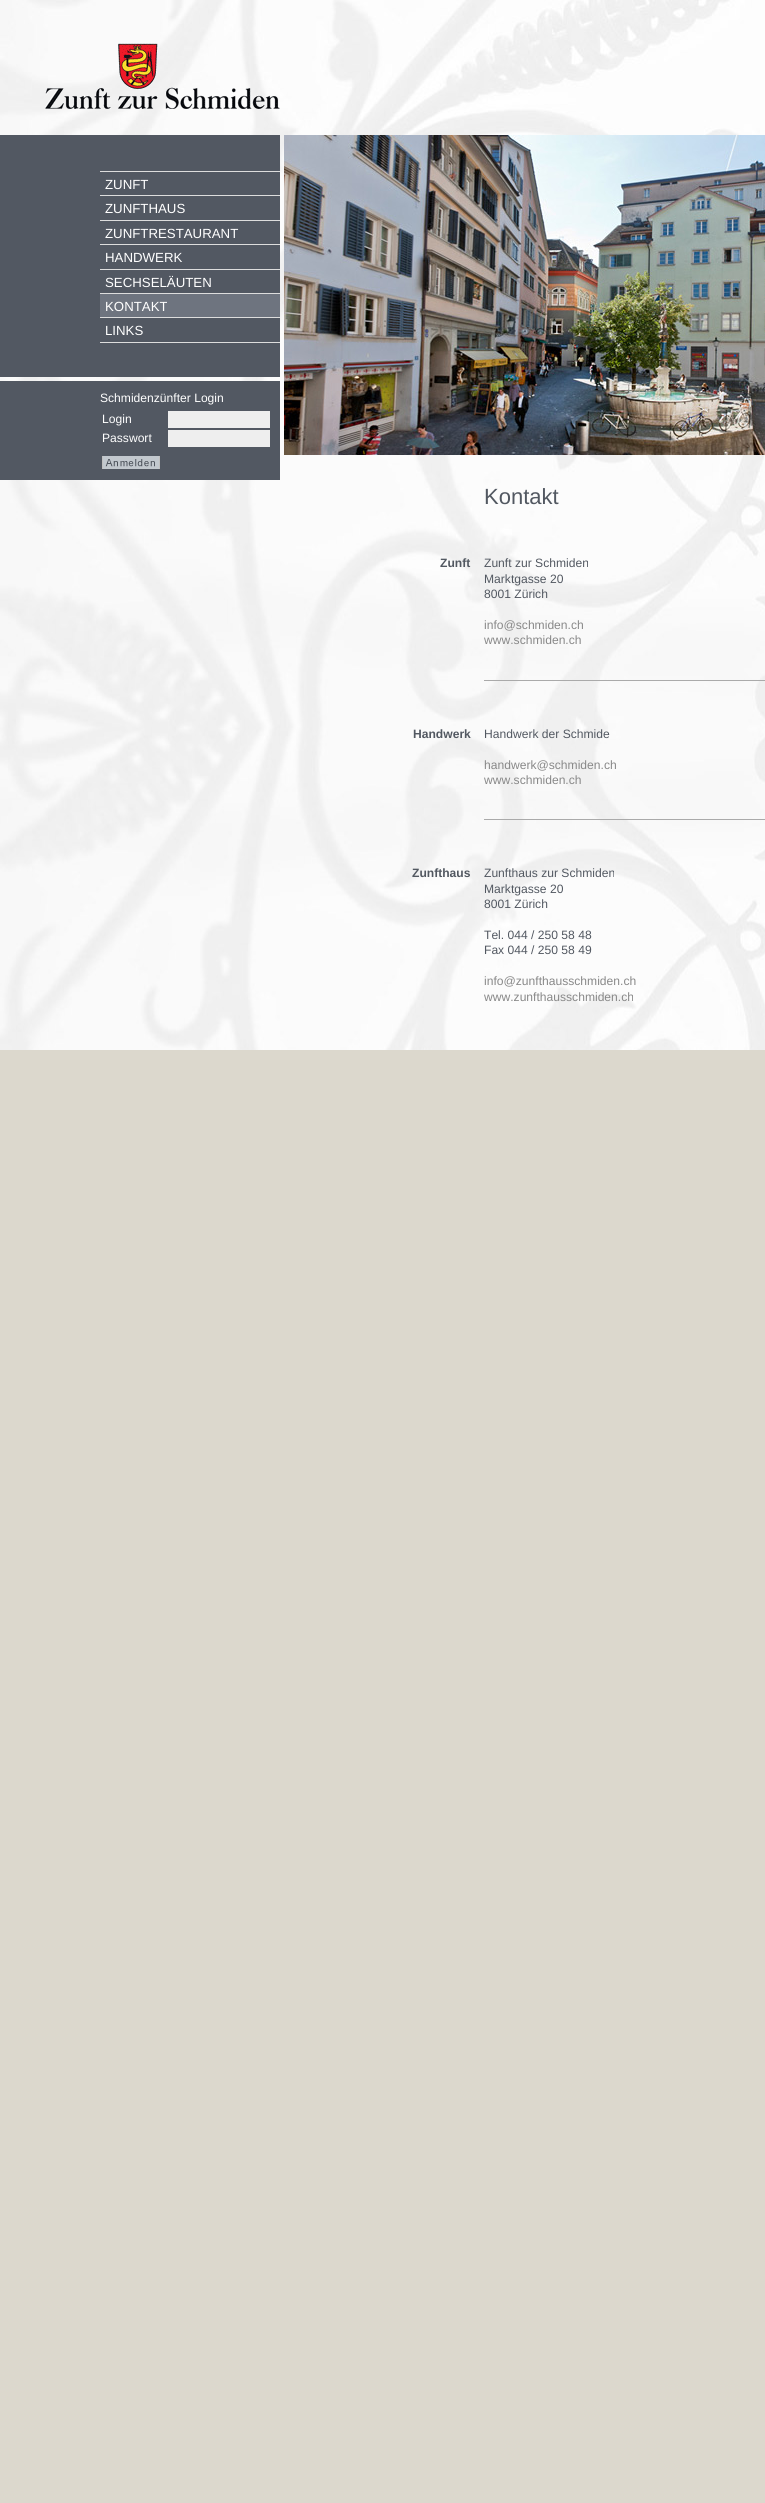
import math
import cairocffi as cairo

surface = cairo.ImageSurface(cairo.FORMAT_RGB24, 765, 2503)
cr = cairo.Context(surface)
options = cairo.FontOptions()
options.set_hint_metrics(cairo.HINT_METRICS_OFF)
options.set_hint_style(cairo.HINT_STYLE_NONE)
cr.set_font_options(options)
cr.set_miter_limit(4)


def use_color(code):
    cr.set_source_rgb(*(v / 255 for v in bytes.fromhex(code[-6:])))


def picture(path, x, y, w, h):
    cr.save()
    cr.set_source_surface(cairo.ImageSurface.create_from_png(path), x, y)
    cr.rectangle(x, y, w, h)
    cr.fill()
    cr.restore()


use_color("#dcd8cd")
cr.paint()
picture("img1.png", 0, 0, 765, 1050)
picture("img2.png", 45, 43, 235, 66)
use_color("#525862")
cr.rectangle(0, 135, 280, 242)
cr.fill()
use_color("#dddddd")
cr.rectangle(100, 171, 180, 1)
cr.fill()
cr.rectangle(100, 195, 180, 1)
cr.fill()
cr.select_font_face("Liberation Sans")
cr.set_font_size(13.25)
use_color("#ffffff")
cr.move_to(105, 189)
cr.show_text("ZUNFT")
use_color("#dddddd")
cr.rectangle(100, 220, 180, 1)
cr.fill()
use_color("#ffffff")
cr.move_to(105, 213)
cr.show_text("ZUNFTHAUS")
use_color("#dddddd")
cr.rectangle(100, 244, 180, 1)
cr.fill()
use_color("#ffffff")
cr.move_to(105, 238)
cr.show_text("ZUNFTRESTAURANT")
use_color("#dddddd")
cr.rectangle(100, 269, 180, 1)
cr.fill()
use_color("#ffffff")
cr.move_to(105, 262)
cr.show_text("HANDWERK")
use_color("#dddddd")
cr.rectangle(100, 293, 180, 1)
cr.fill()
use_color("#ffffff")
cr.move_to(105, 287)
cr.show_text("SECHSELÄUTEN")
use_color("#6e747f")
cr.rectangle(100, 294, 180, 23)
cr.fill()
use_color("#dddddd")
cr.rectangle(100, 317, 180, 1)
cr.fill()
use_color("#ffffff")
cr.move_to(105, 311)
cr.show_text("KONTAKT")
use_color("#dddddd")
cr.rectangle(100, 342, 180, 1)
cr.fill()
use_color("#ffffff")
cr.move_to(105, 335)
cr.show_text("LINKS")
use_color("#525862")
cr.rectangle(0, 381, 280, 99)
cr.fill()
cr.set_font_size(12.1)
use_color("#ffffff")
cr.move_to(100, 402)
cr.show_text("Schmidenzünfter Login")
cr.move_to(102, 423)
cr.show_text("Login")
use_color("#eeeeee")
cr.rectangle(168, 411, 102, 17)
cr.fill()
use_color("#ffffff")
cr.move_to(102, 442)
cr.show_text("Passwort")
use_color("#eeeeee")
cr.rectangle(168, 430, 102, 17)
cr.fill()
picture("img3.png", 102, 456, 58, 13)
picture("img4.png", 284, 135, 481, 320)
cr.set_font_size(22)
use_color("#525861")
cr.move_to(484, 504)
cr.show_text("Kontakt")
cr.select_font_face("Liberation Sans", cairo.FONT_SLANT_NORMAL, cairo.FONT_WEIGHT_BOLD)
cr.set_font_size(12.1)
cr.move_to(440, 567)
cr.show_text("Zunft")
cr.select_font_face("Liberation Sans")
cr.move_to(484, 567)
cr.show_text("Zunft zur Schmiden")
cr.move_to(484, 583)
cr.show_text("Marktgasse 20")
cr.move_to(484, 598)
cr.show_text("8001 Zürich")
use_color("#888888")
cr.move_to(484, 629)
cr.show_text("info@schmiden.ch")
cr.move_to(484, 644)
cr.show_text("www.schmiden.ch")
use_color("#aaaaaa")
cr.rectangle(484, 680, 281, 1)
cr.fill()
cr.select_font_face("Liberation Sans", cairo.FONT_SLANT_NORMAL, cairo.FONT_WEIGHT_BOLD)
use_color("#525861")
cr.move_to(413, 738)
cr.show_text("Handwerk")
cr.select_font_face("Liberation Sans")
cr.move_to(484, 738)
cr.show_text("Handwerk der Schmide")
use_color("#888888")
cr.move_to(484, 769)
cr.show_text("handwerk@schmiden.ch")
cr.move_to(484, 784)
cr.show_text("www.schmiden.ch")
use_color("#aaaaaa")
cr.rectangle(484, 819, 281, 1)
cr.fill()
cr.select_font_face("Liberation Sans", cairo.FONT_SLANT_NORMAL, cairo.FONT_WEIGHT_BOLD)
use_color("#525861")
cr.move_to(412, 877)
cr.show_text("Zunfthaus")
cr.select_font_face("Liberation Sans")
cr.move_to(484, 877)
cr.show_text("Zunfthaus zur Schmiden")
cr.move_to(484, 893)
cr.show_text("Marktgasse 20")
cr.move_to(484, 908)
cr.show_text("8001 Zürich")
cr.move_to(484, 939)
cr.show_text("Tel. 044 / 250 58 48")
cr.move_to(484, 954)
cr.show_text("Fax 044 / 250 58 49")
use_color("#888888")
cr.move_to(484, 985)
cr.show_text("info@zunfthausschmiden.ch")
cr.move_to(484, 1001)
cr.show_text("www.zunfthausschmiden.ch")
surface.write_to_png("result.png")
